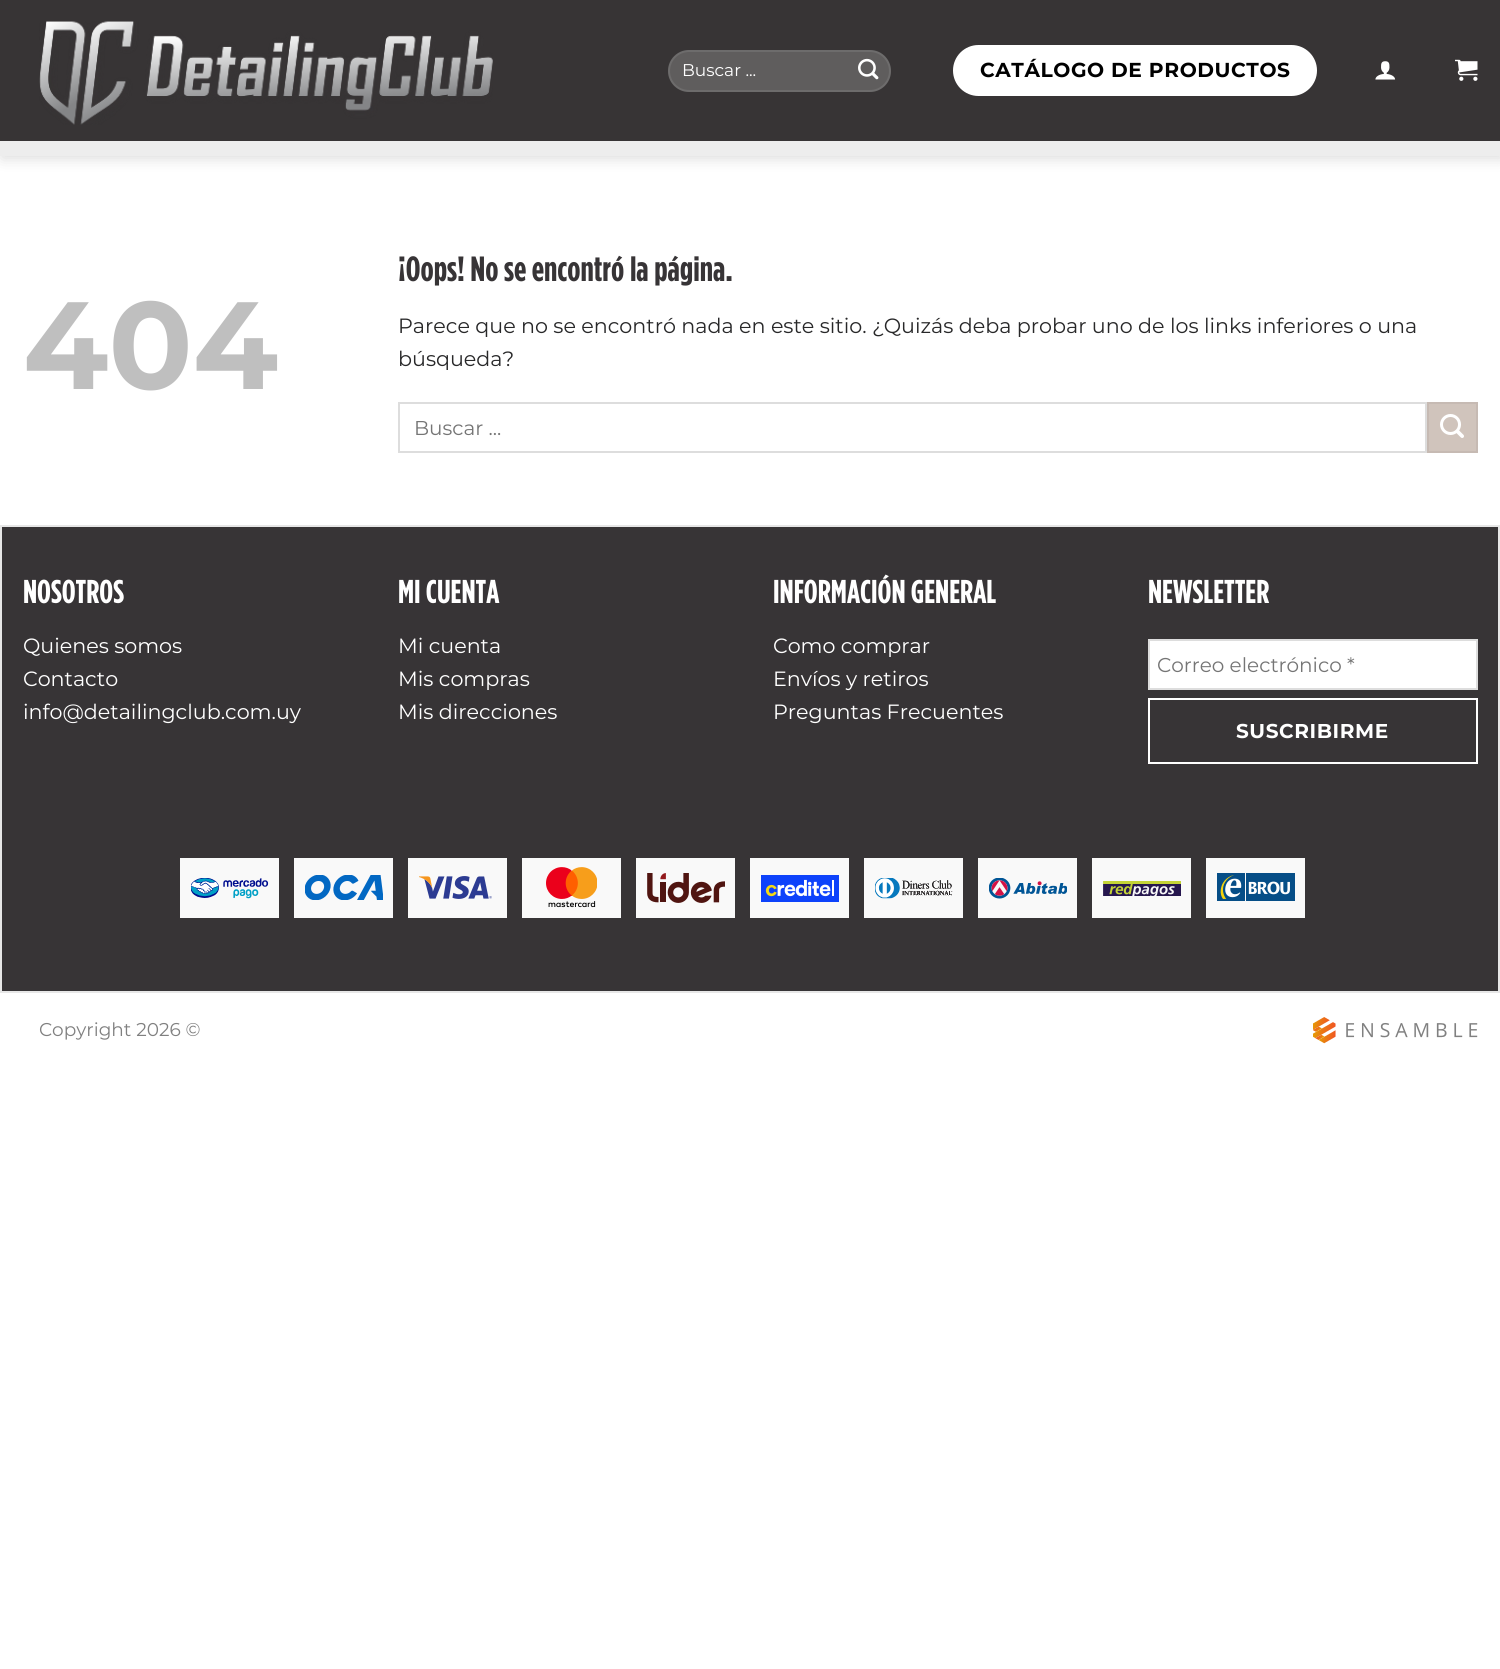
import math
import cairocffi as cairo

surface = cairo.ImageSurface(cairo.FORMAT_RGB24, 1500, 1669)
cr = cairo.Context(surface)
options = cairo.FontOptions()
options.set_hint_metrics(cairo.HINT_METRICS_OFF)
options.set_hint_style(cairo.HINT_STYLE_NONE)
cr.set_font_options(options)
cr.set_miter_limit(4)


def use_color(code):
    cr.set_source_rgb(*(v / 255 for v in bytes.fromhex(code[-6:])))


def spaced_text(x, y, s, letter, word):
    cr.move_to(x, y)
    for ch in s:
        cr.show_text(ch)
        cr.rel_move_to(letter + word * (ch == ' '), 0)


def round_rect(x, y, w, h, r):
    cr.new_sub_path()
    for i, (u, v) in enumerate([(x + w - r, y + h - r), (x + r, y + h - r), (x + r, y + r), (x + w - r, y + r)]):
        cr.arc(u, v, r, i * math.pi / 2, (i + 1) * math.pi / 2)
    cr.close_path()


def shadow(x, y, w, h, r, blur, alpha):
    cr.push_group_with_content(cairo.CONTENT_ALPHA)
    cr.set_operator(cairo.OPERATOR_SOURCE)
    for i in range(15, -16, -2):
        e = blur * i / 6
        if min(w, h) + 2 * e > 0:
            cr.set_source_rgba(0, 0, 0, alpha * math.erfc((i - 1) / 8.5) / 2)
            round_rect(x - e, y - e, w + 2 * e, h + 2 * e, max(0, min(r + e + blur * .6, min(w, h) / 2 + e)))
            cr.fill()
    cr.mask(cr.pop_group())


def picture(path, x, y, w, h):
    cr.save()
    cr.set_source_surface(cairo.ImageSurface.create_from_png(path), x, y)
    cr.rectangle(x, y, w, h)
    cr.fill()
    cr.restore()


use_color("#ffffff")
cr.paint()
use_color("#000000")
shadow(2, 2, 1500, 156, 0, 7.5, 0.15)
use_color("#373435")
cr.rectangle(0, 0, 1500, 141)
cr.fill()
picture("img1.png", 39, 21, 454, 104)
use_color("#5f5d5d")
round_rect(668, 50, 223, 42, 21)
cr.fill()
round_rect(669, 51, 221, 40, 20)
cr.set_source_rgba(1, 1, 1, 0.09)
cr.stroke()
cr.select_font_face("Montserrat")
cr.set_font_size(17)
use_color("#ffffff")
cr.move_to(682, 76)
cr.show_text("Buscar ...")
picture("img2.png", 858, 58, 21, 22)
round_rect(954.5, 46.5, 361, 48, 24)
cr.fill_preserve()
cr.set_line_width(3)
cr.stroke()
cr.select_font_face("Montserrat", cairo.FONT_SLANT_NORMAL, cairo.FONT_WEIGHT_BOLD)
cr.set_font_size(20.2)
use_color("#000000")
spaced_text(980, 77, "CATÁLOGO DE PRODUCTOS", 0.6, 0)
picture("img3.png", 1375, 61, 21, 19)
picture("img4.png", 1455, 59, 23, 22)
use_color("#ededed")
cr.rectangle(0, 141, 1500, 15)
cr.fill()
cr.set_font_size(124)
use_color("#bfbfbf")
cr.move_to(23, 389)
cr.show_text("404")
cr.select_font_face("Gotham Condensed", cairo.FONT_SLANT_NORMAL, cairo.FONT_WEIGHT_BOLD)
cr.set_font_size(35)
use_color("#373436")
cr.move_to(398, 281)
cr.show_text("¡Oops! No se encontró la página.")
cr.select_font_face("Montserrat")
cr.set_font_size(20.65)
use_color("#282829")
cr.move_to(398, 333)
cr.show_text("Parece que no se encontró nada en este sitio. ¿Quizás deba probar uno de los links inferiores o una")
cr.move_to(398, 366)
cr.show_text("búsqueda?")
cr.rectangle(399, 403, 1027, 49)
use_color("#dddddd")
cr.set_line_width(2)
cr.stroke()
cr.set_font_size(20)
use_color("#757575")
cr.move_to(414, 435)
cr.show_text("Buscar ...")
use_color("#d0c4bc")
cr.rectangle(1428, 403, 49, 49)
cr.fill_preserve()
use_color("#c6bab3")
cr.stroke()
picture("img5.png", 1440, 414, 24, 24)
use_color("#373436")
cr.rectangle(1, 526, 1498, 466)
cr.fill_preserve()
use_color("#e7e7e7")
cr.stroke()
cr.select_font_face("Gotham Condensed", cairo.FONT_SLANT_NORMAL, cairo.FONT_WEIGHT_BOLD)
cr.set_font_size(33)
use_color("#ffffff")
cr.move_to(23, 603)
cr.show_text("NOSOTROS")
cr.select_font_face("Montserrat")
cr.set_font_size(20.65)
cr.move_to(23, 653)
cr.show_text("Quienes somos")
cr.move_to(23, 686)
cr.show_text("Contacto")
cr.move_to(23, 719)
cr.show_text("info@detailingclub.com.uy")
cr.select_font_face("Gotham Condensed", cairo.FONT_SLANT_NORMAL, cairo.FONT_WEIGHT_BOLD)
cr.set_font_size(33)
cr.move_to(398, 603)
cr.show_text("MI CUENTA")
cr.select_font_face("Montserrat")
cr.set_font_size(20.65)
cr.move_to(398, 653)
cr.show_text("Mi cuenta")
cr.move_to(398, 686)
cr.show_text("Mis compras")
cr.move_to(398, 719)
cr.show_text("Mis direcciones")
cr.select_font_face("Gotham Condensed", cairo.FONT_SLANT_NORMAL, cairo.FONT_WEIGHT_BOLD)
cr.set_font_size(33)
cr.move_to(773, 603)
cr.show_text("INFORMACIÓN GENERAL")
cr.select_font_face("Montserrat")
cr.set_font_size(20.65)
cr.move_to(773, 653)
cr.show_text("Como comprar")
cr.move_to(773, 686)
cr.show_text("Envíos y retiros")
cr.move_to(773, 719)
cr.show_text("Preguntas Frecuentes")
cr.select_font_face("Gotham Condensed", cairo.FONT_SLANT_NORMAL, cairo.FONT_WEIGHT_BOLD)
cr.set_font_size(33)
cr.move_to(1148, 603)
cr.show_text("NEWSLETTER")
cr.rectangle(1149, 640, 328, 49)
cr.fill_preserve()
use_color("#dddddd")
cr.stroke()
cr.select_font_face("Montserrat")
cr.set_font_size(20)
use_color("#757575")
cr.move_to(1157, 672)
cr.show_text("Correo electrónico *")
cr.rectangle(1149, 699, 328, 64)
use_color("#ffffff")
cr.stroke()
cr.select_font_face("Montserrat", cairo.FONT_SLANT_NORMAL, cairo.FONT_WEIGHT_BOLD)
spaced_text(1236, 738, "SUSCRIBIRME", 0.6, 0)
use_color("#f9f9f9")
cr.rectangle(180, 858, 99, 60)
cr.fill()
picture("img6.png", 191, 878, 78, 21)
cr.rectangle(294, 858, 99, 60)
cr.fill()
picture("img7.png", 305, 875, 78, 25)
cr.rectangle(408, 858, 99, 60)
cr.fill()
picture("img8.png", 419, 876, 73, 23)
cr.rectangle(522, 858, 99, 60)
cr.fill()
picture("img9.png", 546, 867, 51, 41)
cr.rectangle(636, 858, 99, 60)
cr.fill()
picture("img10.png", 647, 873, 78, 30)
cr.rectangle(750, 858, 99, 60)
cr.fill()
picture("img11.png", 761, 875, 78, 27)
cr.rectangle(864, 858, 99, 60)
cr.fill()
picture("img12.png", 875, 878, 78, 21)
cr.rectangle(978, 858, 99, 60)
cr.fill()
picture("img13.png", 989, 878, 78, 21)
cr.rectangle(1092, 858, 99, 60)
cr.fill()
picture("img14.png", 1103, 881, 78, 15)
cr.rectangle(1206, 858, 99, 60)
cr.fill()
picture("img15.png", 1217, 873, 78, 28)
cr.select_font_face("Montserrat")
cr.set_font_size(18.5)
use_color("#808080")
cr.move_to(39, 1036)
cr.show_text("Copyright 2026 ©")
picture("img16.png", 1313, 1017, 165, 27)
surface.write_to_png("result.png")
